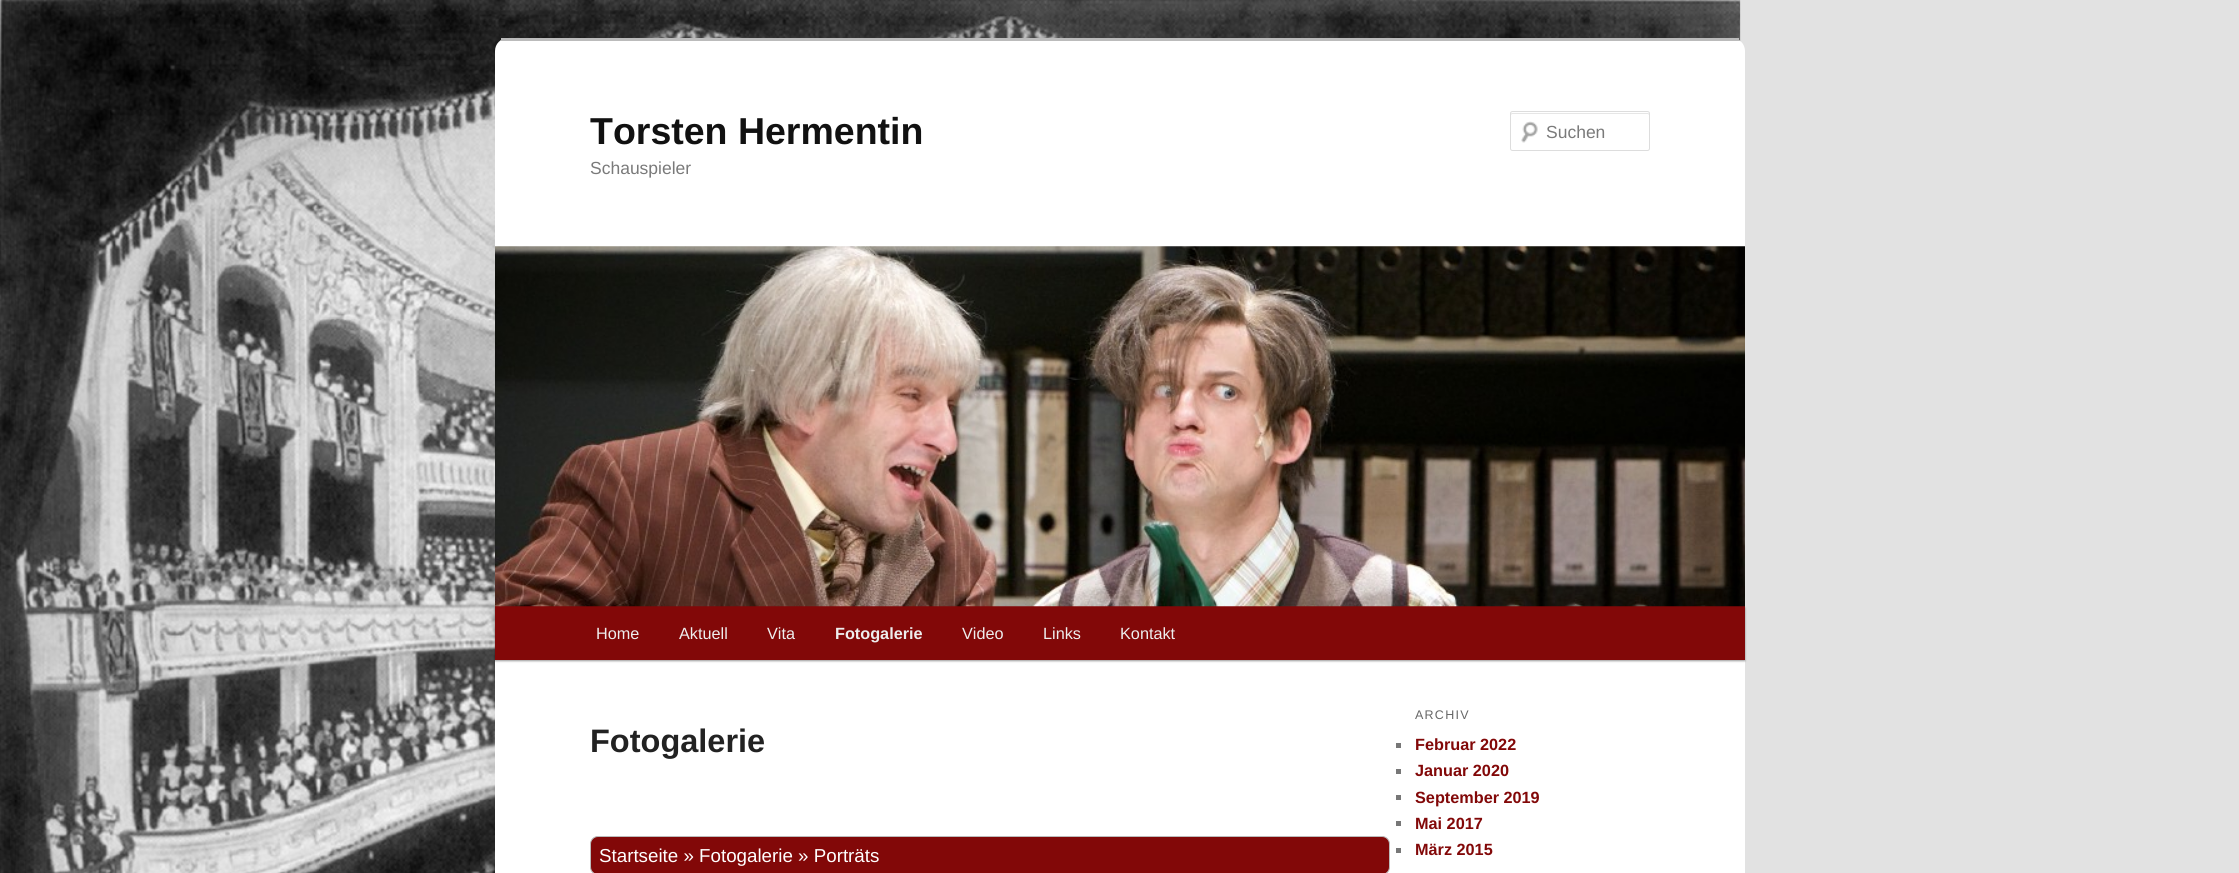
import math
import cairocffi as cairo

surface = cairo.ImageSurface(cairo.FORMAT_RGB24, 2239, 873)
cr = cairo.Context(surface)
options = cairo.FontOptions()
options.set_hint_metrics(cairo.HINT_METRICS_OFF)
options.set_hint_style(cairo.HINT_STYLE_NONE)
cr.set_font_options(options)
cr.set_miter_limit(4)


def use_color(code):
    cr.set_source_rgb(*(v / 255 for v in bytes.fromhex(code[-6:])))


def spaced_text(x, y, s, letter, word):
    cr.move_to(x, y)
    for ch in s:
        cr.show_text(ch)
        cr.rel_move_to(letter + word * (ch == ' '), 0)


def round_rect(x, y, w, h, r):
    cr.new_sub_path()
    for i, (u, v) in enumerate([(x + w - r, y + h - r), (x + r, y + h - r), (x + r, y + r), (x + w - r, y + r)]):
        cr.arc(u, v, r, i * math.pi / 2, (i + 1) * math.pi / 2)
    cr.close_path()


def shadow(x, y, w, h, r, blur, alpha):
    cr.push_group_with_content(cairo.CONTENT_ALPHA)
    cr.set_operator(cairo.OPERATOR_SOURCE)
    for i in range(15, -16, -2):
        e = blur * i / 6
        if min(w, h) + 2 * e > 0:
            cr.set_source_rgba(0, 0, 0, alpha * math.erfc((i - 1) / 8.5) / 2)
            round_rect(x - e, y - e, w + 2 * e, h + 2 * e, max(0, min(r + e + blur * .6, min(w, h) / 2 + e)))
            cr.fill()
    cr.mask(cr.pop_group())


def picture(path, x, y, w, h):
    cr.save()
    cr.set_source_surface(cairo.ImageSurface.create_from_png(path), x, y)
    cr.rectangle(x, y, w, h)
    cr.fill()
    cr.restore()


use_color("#e2e2e2")
cr.paint()
picture("img1.png", 0, 0, 1741, 873)
use_color("#ffffff")
round_rect(495, 38, 1250, 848, 13)
cr.fill()
use_color("#bbbbbb")
cr.rectangle(501, 38, 1238, 3)
cr.fill()
cr.select_font_face("Liberation Sans", cairo.FONT_SLANT_NORMAL, cairo.FONT_WEIGHT_BOLD)
cr.set_font_size(37.5)
use_color("#111111")
cr.move_to(590, 144)
cr.show_text("Torsten Hermentin")
cr.select_font_face("Liberation Sans")
cr.set_font_size(17.5)
use_color("#7a7a7a")
cr.move_to(590, 174)
cr.show_text("Schauspieler")
picture("img2.png", 1521, 121, 17, 22)
use_color("#e6e6e6")
cr.new_path()
cr.move_to(1512, 114)
cr.line_to(1648, 114)
cr.line_to(1649, 115)
cr.curve_to(1649, 114, 1649, 113, 1648, 113)
cr.line_to(1512, 113)
cr.curve_to(1511, 113, 1511, 114, 1511, 115)
cr.close_path()
cr.fill()
round_rect(1510.5, 111.5, 139, 39, 2)
use_color("#dddddd")
cr.set_line_width(1)
cr.stroke()
use_color("#7a7a7a")
cr.move_to(1546, 138)
cr.show_text("Suchen")
use_color("#000000")
shadow(495, 608, 1250, 53, 0, 1, 0.4)
use_color("#820808")
cr.rectangle(495, 606, 1250, 54)
cr.fill()
picture("img3.png", 495, 246, 1250, 361)
cr.set_font_size(16.25)
use_color("#eeeeee")
cr.move_to(596, 639)
cr.show_text("Home")
cr.move_to(679, 639)
cr.show_text("Aktuell")
cr.move_to(767, 639)
cr.show_text("Vita")
cr.select_font_face("Liberation Sans", cairo.FONT_SLANT_NORMAL, cairo.FONT_WEIGHT_BOLD)
cr.move_to(835, 639)
cr.show_text("Fotogalerie")
cr.select_font_face("Liberation Sans")
cr.move_to(962, 639)
cr.show_text("Video")
cr.move_to(1043, 639)
cr.show_text("Links")
cr.move_to(1120, 639)
cr.show_text("Kontakt")
cr.select_font_face("Liberation Sans", cairo.FONT_SLANT_NORMAL, cairo.FONT_WEIGHT_BOLD)
cr.set_font_size(32.5)
use_color("#222222")
cr.move_to(590, 752)
cr.show_text("Fotogalerie")
use_color("#820808")
round_rect(590.5, 836.5, 799, 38, 7.5)
cr.fill_preserve()
use_color("#bbbbbb")
cr.stroke()
cr.select_font_face("Liberation Sans")
cr.set_font_size(18.75)
use_color("#ffffff")
cr.move_to(599, 862)
cr.show_text("Startseite » Fotogalerie » Porträts")
cr.set_font_size(12.5)
use_color("#666666")
spaced_text(1415, 719, "ARCHIV", 1.25, 0)
use_color("#777777")
cr.rectangle(1396, 743, 5, 5)
cr.fill()
cr.select_font_face("Liberation Sans", cairo.FONT_SLANT_NORMAL, cairo.FONT_WEIGHT_BOLD)
cr.set_font_size(16.25)
use_color("#820808")
cr.move_to(1415, 750)
cr.show_text("Februar 2022")
use_color("#777777")
cr.rectangle(1396, 769, 5, 5)
cr.fill()
use_color("#820808")
cr.move_to(1415, 776)
cr.show_text("Januar 2020")
use_color("#777777")
cr.rectangle(1396, 795, 5, 5)
cr.fill()
use_color("#820808")
cr.move_to(1415, 803)
cr.show_text("September 2019")
use_color("#777777")
cr.rectangle(1396, 821, 5, 5)
cr.fill()
use_color("#820808")
cr.move_to(1415, 829)
cr.show_text("Mai 2017")
use_color("#777777")
cr.rectangle(1396, 848, 5, 5)
cr.fill()
use_color("#820808")
cr.move_to(1415, 855)
cr.show_text("März 2015")
surface.write_to_png("result.png")
